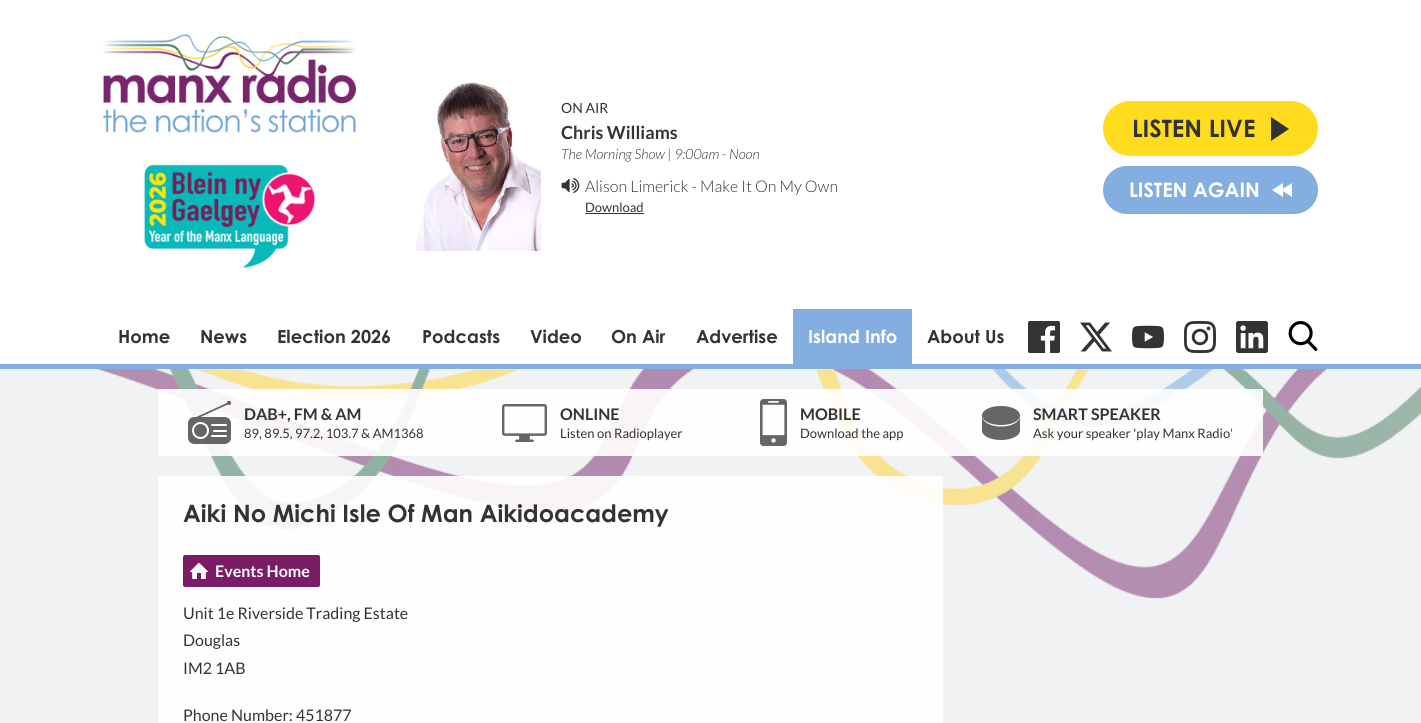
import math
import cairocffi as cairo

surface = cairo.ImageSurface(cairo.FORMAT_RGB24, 1421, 723)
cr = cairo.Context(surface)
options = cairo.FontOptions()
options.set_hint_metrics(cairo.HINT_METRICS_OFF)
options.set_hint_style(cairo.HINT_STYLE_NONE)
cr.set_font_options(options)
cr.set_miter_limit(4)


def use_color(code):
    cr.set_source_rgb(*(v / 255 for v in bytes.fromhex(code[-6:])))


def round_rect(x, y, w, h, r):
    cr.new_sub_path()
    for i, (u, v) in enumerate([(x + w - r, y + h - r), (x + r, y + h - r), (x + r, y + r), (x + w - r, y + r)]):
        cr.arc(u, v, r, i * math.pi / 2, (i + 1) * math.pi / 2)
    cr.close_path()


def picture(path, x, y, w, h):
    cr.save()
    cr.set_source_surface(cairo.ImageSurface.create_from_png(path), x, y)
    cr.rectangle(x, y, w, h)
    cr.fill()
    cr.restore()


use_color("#ffffff")
cr.paint()
use_color("#84aee0")
cr.rectangle(0, 364, 1421, 5)
cr.fill()
picture("img1.png", 103, 34, 253, 234)
picture("img2.png", 416, 82, 125, 169)
cr.select_font_face("Lato")
cr.set_font_size(14)
use_color("#333333")
cr.move_to(561, 113)
cr.show_text("ON AIR")
cr.select_font_face("Lato", cairo.FONT_SLANT_NORMAL, cairo.FONT_WEIGHT_BOLD)
cr.set_font_size(18)
cr.move_to(561, 139)
cr.show_text("Chris Williams")
cr.select_font_face("Lato Light", cairo.FONT_SLANT_ITALIC)
cr.set_font_size(14)
cr.move_to(561, 159)
cr.show_text("The Morning Show | 9:00am - Noon")
picture("img3.png", 561, 178, 19, 15)
cr.select_font_face("Lato Light")
cr.set_font_size(16)
cr.move_to(585, 192)
cr.show_text("Alison Limerick - Make It On My Own")
cr.select_font_face("Lato")
cr.set_font_size(13)
cr.move_to(585, 212)
cr.show_text("Download")
cr.rectangle(585, 213, 59, 1)
cr.fill()
use_color("#ffdc1d")
round_rect(1103, 101, 215, 55, 27.5)
cr.fill()
cr.select_font_face("Century Gothic", cairo.FONT_SLANT_NORMAL, cairo.FONT_WEIGHT_BOLD)
cr.set_font_size(24)
use_color("#333333")
cr.move_to(1132, 137)
cr.show_text("LISTEN LIVE")
cr.new_path()
cr.move_to(1271, 141)
cr.line_to(1271, 117)
cr.line_to(1289, 129)
cr.close_path()
cr.fill()
use_color("#84aee0")
round_rect(1103, 166, 215, 48, 24)
cr.fill()
cr.set_font_size(20)
use_color("#ffffff")
cr.move_to(1129, 197)
cr.show_text("LISTEN AGAIN")
cr.new_path()
cr.move_to(1283, 183)
cr.line_to(1283, 197)
cr.line_to(1272, 190)
cr.close_path()
cr.fill()
cr.new_path()
cr.move_to(1292, 183)
cr.line_to(1292, 197)
cr.line_to(1281, 190)
cr.close_path()
cr.fill()
cr.set_font_size(18)
use_color("#333333")
cr.move_to(118, 343)
cr.show_text("Home")
cr.move_to(200, 343)
cr.show_text("News")
cr.move_to(277, 343)
cr.show_text("Election 2026")
cr.move_to(422, 343)
cr.show_text("Podcasts")
cr.move_to(530, 343)
cr.show_text("Video")
cr.move_to(611, 343)
cr.show_text("On Air")
cr.move_to(696, 343)
cr.show_text("Advertise")
use_color("#84aee0")
cr.rectangle(793, 309, 119, 55)
cr.fill()
use_color("#ffffff")
cr.move_to(808, 343)
cr.show_text("Island Info")
use_color("#333333")
cr.move_to(927, 343)
cr.show_text("About Us")
picture("img4.png", 1028, 321, 32, 32)
picture("img5.png", 1080, 322, 32, 30)
picture("img6.png", 1132, 325, 32, 24)
picture("img7.png", 1184, 321, 32, 32)
picture("img8.png", 1236, 321, 32, 32)
picture("img9.png", 1288, 321, 30, 30)
use_color("#f1f2f4")
cr.rectangle(0, 369, 1421, 354)
cr.fill()
picture("img10.png", 96, 369, 1325, 230)
cr.set_source_rgba(1, 1, 1, 0.9)
cr.rectangle(158, 389, 1105, 67)
cr.fill()
picture("img11.png", 188, 401, 43, 43)
cr.select_font_face("Lato", cairo.FONT_SLANT_NORMAL, cairo.FONT_WEIGHT_BOLD)
cr.set_font_size(16)
use_color("#333333")
cr.move_to(244, 420)
cr.show_text("DAB+, FM & AM")
cr.select_font_face("Lato")
cr.set_font_size(13)
cr.move_to(244, 438)
cr.show_text("89, 89.5, 97.2, 103.7 & AM1368")
picture("img12.png", 502, 404, 45, 38)
cr.select_font_face("Lato", cairo.FONT_SLANT_NORMAL, cairo.FONT_WEIGHT_BOLD)
cr.set_font_size(16)
cr.move_to(560, 420)
cr.show_text("ONLINE")
cr.select_font_face("Lato")
cr.set_font_size(13)
cr.move_to(560, 438)
cr.show_text("Listen on Radioplayer")
picture("img13.png", 760, 399, 27, 47)
cr.select_font_face("Lato", cairo.FONT_SLANT_NORMAL, cairo.FONT_WEIGHT_BOLD)
cr.set_font_size(16)
cr.move_to(800, 420)
cr.show_text("MOBILE")
cr.select_font_face("Lato")
cr.set_font_size(13)
cr.move_to(800, 438)
cr.show_text("Download the app")
picture("img14.png", 982, 406, 38, 34)
cr.select_font_face("Lato", cairo.FONT_SLANT_NORMAL, cairo.FONT_WEIGHT_BOLD)
cr.set_font_size(16)
cr.move_to(1033, 420)
cr.show_text("SMART SPEAKER")
cr.select_font_face("Lato")
cr.set_font_size(13)
cr.move_to(1033, 438)
cr.show_text("Ask your speaker 'play Manx Radio'")
cr.set_source_rgba(1, 1, 1, 0.9)
cr.rectangle(158, 476, 785, 247)
cr.fill()
cr.select_font_face("Century Gothic", cairo.FONT_SLANT_NORMAL, cairo.FONT_WEIGHT_BOLD)
cr.set_font_size(24)
use_color("#333333")
cr.move_to(183, 522)
cr.show_text("Aiki No Michi Isle Of Man Aikidoacademy")
use_color("#7b1d66")
round_rect(183, 555, 137, 32, 2)
cr.fill()
picture("img15.png", 190, 563, 18, 16)
cr.select_font_face("Lato", cairo.FONT_SLANT_NORMAL, cairo.FONT_WEIGHT_BOLD)
cr.set_font_size(16)
use_color("#ffffff")
cr.move_to(215, 577)
cr.show_text("Events Home")
cr.select_font_face("Lato")
use_color("#333333")
cr.move_to(183, 619)
cr.show_text("Unit 1e Riverside Trading Estate")
cr.move_to(183, 646)
cr.show_text("Douglas")
cr.move_to(183, 674)
cr.show_text("IM2 1AB")
cr.move_to(183, 721)
cr.show_text("Phone Number: 451877")
surface.write_to_png("result.png")
